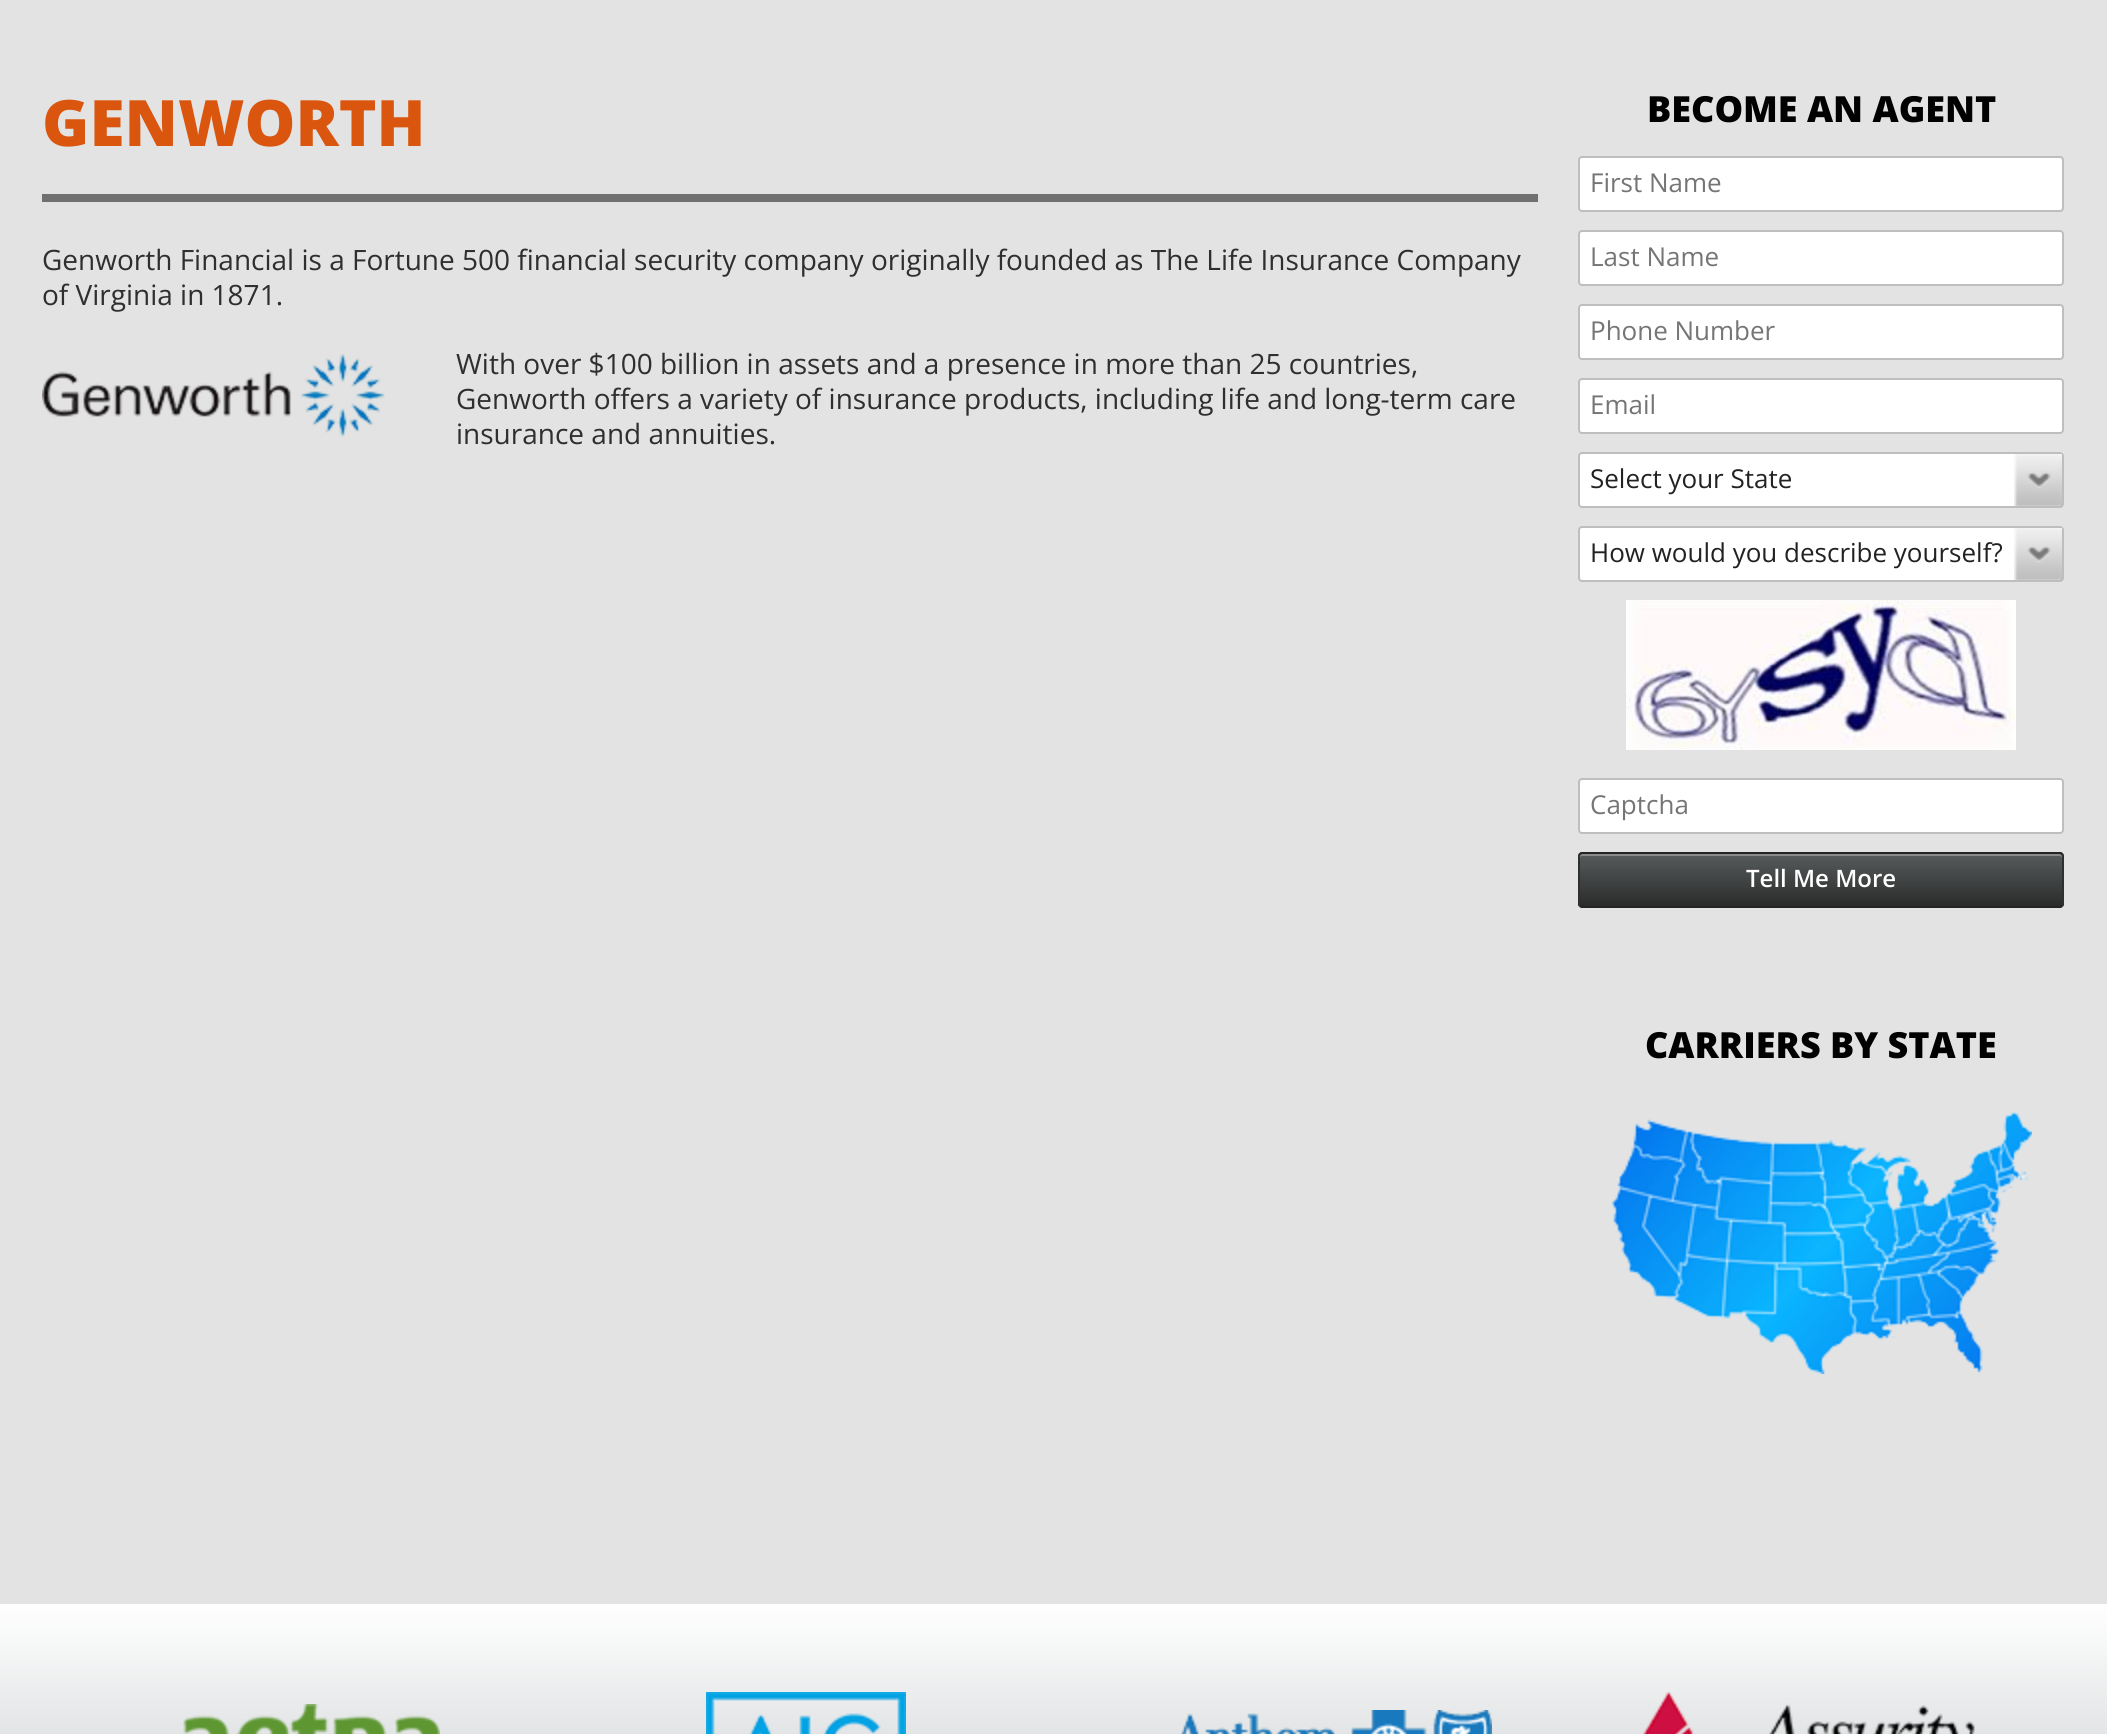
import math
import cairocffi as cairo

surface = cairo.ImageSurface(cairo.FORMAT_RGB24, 2107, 1734)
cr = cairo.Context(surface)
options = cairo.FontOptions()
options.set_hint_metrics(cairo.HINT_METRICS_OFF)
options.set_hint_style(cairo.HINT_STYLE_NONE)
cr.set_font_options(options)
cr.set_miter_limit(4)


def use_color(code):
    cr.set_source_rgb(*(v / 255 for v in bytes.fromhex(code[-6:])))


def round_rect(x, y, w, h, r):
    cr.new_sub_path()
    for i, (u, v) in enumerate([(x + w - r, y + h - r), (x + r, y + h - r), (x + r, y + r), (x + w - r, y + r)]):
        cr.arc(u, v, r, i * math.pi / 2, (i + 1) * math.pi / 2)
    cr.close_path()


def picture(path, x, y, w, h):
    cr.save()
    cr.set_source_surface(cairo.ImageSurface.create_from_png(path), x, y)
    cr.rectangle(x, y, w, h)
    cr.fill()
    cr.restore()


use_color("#e3e3e3")
cr.paint()
use_color("#707070")
cr.rectangle(42, 194, 1496, 8)
cr.fill()
cr.select_font_face("Open Sans ExtraBold")
cr.set_font_size(64)
use_color("#da550d")
cr.move_to(42, 146)
cr.show_text("GENWORTH")
cr.select_font_face("Open Sans")
cr.set_font_size(28)
use_color("#2f2f2f")
cr.move_to(42, 270)
cr.show_text("Genworth Financial is a Fortune 500 financial security company originally founded as The Life Insurance Company")
cr.move_to(42, 305)
cr.show_text("of Virginia in 1871.")
picture("img1.png", 42, 354, 343, 83)
cr.move_to(456, 374)
cr.show_text("With over $100 billion in assets and a presence in more than 25 countries,")
cr.move_to(456, 409)
cr.show_text("Genworth offers a variety of insurance products, including life and long-term care")
cr.move_to(456, 444)
cr.show_text("insurance and annuities.")
cr.select_font_face("Open Sans ExtraBold")
cr.set_font_size(36)
use_color("#010101")
cr.move_to(1647, 122)
cr.show_text("BECOME AN AGENT")
use_color("#ffffff")
round_rect(1579, 157, 484, 54, 3)
cr.fill_preserve()
use_color("#bebebe")
cr.stroke()
cr.select_font_face("Open Sans")
cr.set_font_size(26)
use_color("#757575")
cr.move_to(1590, 192)
cr.show_text("First Name")
use_color("#ffffff")
round_rect(1579, 231, 484, 54, 3)
cr.fill_preserve()
use_color("#bebebe")
cr.stroke()
use_color("#757575")
cr.move_to(1590, 266)
cr.show_text("Last Name")
use_color("#ffffff")
round_rect(1579, 305, 484, 54, 3)
cr.fill_preserve()
use_color("#bebebe")
cr.stroke()
use_color("#757575")
cr.move_to(1590, 340)
cr.show_text("Phone Number")
use_color("#ffffff")
round_rect(1579, 379, 484, 54, 3)
cr.fill_preserve()
use_color("#bebebe")
cr.stroke()
use_color("#757575")
cr.move_to(1590, 414)
cr.show_text("Email")
use_color("#ffffff")
round_rect(1579, 453, 484, 54, 3)
cr.fill_preserve()
use_color("#bebebe")
cr.stroke()
use_color("#222222")
cr.move_to(1590, 488)
cr.show_text("Select your State")
picture("img2.png", 2014, 454, 46, 52)
gradient = cairo.LinearGradient(2061, 454, 2061, 506)
gradient.add_color_stop_rgba(0, 0.949, 0.949, 0.949, 1)
gradient.add_color_stop_rgba(1, 0.745, 0.745, 0.745, 1)
cr.set_source(gradient)
cr.rectangle(2060, 454, 2, 52)
cr.fill()
use_color("#ffffff")
round_rect(1579, 527, 484, 54, 3)
cr.fill_preserve()
use_color("#bebebe")
cr.stroke()
use_color("#222222")
cr.move_to(1590, 562)
cr.show_text("How would you describe yourself?")
picture("img2.png", 2014, 528, 46, 52)
gradient = cairo.LinearGradient(2061, 528, 2061, 580)
gradient.add_color_stop_rgba(0, 0.949, 0.949, 0.949, 1)
gradient.add_color_stop_rgba(1, 0.745, 0.745, 0.745, 1)
cr.set_source(gradient)
cr.rectangle(2060, 528, 2, 52)
cr.fill()
picture("img3.png", 1626, 600, 390, 150)
use_color("#ffffff")
round_rect(1579, 779, 484, 54, 3)
cr.fill_preserve()
use_color("#bebebe")
cr.stroke()
use_color("#757575")
cr.move_to(1590, 814)
cr.show_text("Captcha")
cr.save()
round_rect(1578, 852, 486, 56, 4)
cr.clip()
gradient = cairo.LinearGradient(1821, 802, 1821, 854)
gradient.add_color_stop_rgba(0, 0.345, 0.357, 0.357, 1)
gradient.add_color_stop_rgba(1, 0.165, 0.173, 0.173, 1)
cr.set_source(gradient)
cr.rectangle(1578, 852, 486, 2)
cr.fill()
gradient = cairo.LinearGradient(1821, 854, 1821, 906)
gradient.add_color_stop_rgba(0, 0.345, 0.357, 0.357, 1)
gradient.add_color_stop_rgba(1, 0.165, 0.173, 0.173, 1)
cr.set_source(gradient)
cr.rectangle(1578, 854, 486, 52)
cr.fill()
gradient = cairo.LinearGradient(1821, 906, 1821, 958)
gradient.add_color_stop_rgba(0, 0.345, 0.357, 0.357, 1)
gradient.add_color_stop_rgba(1, 0.165, 0.173, 0.173, 1)
cr.set_source(gradient)
cr.rectangle(1578, 906, 486, 2)
cr.fill()
cr.restore()
use_color("#8a8c8c")
cr.new_path()
cr.move_to(1582, 856)
cr.line_to(2060, 856)
cr.curve_to(2061, 856, 2062, 857, 2062, 858)
cr.curve_to(2062, 856, 2062, 854, 2060, 854)
cr.line_to(1582, 854)
cr.curve_to(1580, 854, 1580, 856, 1580, 858)
cr.curve_to(1580, 857, 1581, 856, 1582, 856)
cr.close_path()
cr.fill()
cr.new_path()
cr.move_to(1580, 854)
cr.line_to(1582, 853)
cr.line_to(2060, 853)
cr.line_to(2062, 854)
use_color("#252424")
cr.stroke()
cr.new_path()
cr.move_to(2062, 854)
cr.line_to(2063, 855.5)
cr.line_to(2063, 904.5)
cr.line_to(2062, 906)
use_color("#303030")
cr.stroke()
cr.new_path()
cr.move_to(2062, 906)
cr.line_to(2060, 907)
cr.line_to(1582, 907)
cr.line_to(1580, 906)
use_color("#252424")
cr.stroke()
cr.new_path()
cr.move_to(1580, 906)
cr.line_to(1579, 904.5)
cr.line_to(1579, 855.5)
cr.line_to(1580, 854)
use_color("#303030")
cr.stroke()
cr.select_font_face("Open Sans SemiBold")
cr.set_font_size(24)
use_color("#ffffff")
cr.move_to(1746, 887)
cr.show_text("Tell Me More")
cr.select_font_face("Open Sans ExtraBold")
cr.set_font_size(36)
use_color("#010101")
cr.move_to(1645, 1058)
cr.show_text("CARRIERS BY STATE")
picture("img4.png", 1612, 1112, 420, 262)
gradient = cairo.LinearGradient(1054, 1604, 1054, 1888)
gradient.add_color_stop_rgba(0, 1, 1, 1, 1)
gradient.add_color_stop_rgba(1, 0.753, 0.773, 0.78, 1)
cr.set_source(gradient)
cr.rectangle(0, 1604, 2107, 129)
cr.fill()
picture("img5.png", 183, 1704, 257, 30)
picture("img6.png", 706, 1692, 200, 42)
picture("img7.png", 1181, 1710, 311, 24)
picture("img8.png", 1642, 1692, 333, 42)
surface.write_to_png("result.png")
